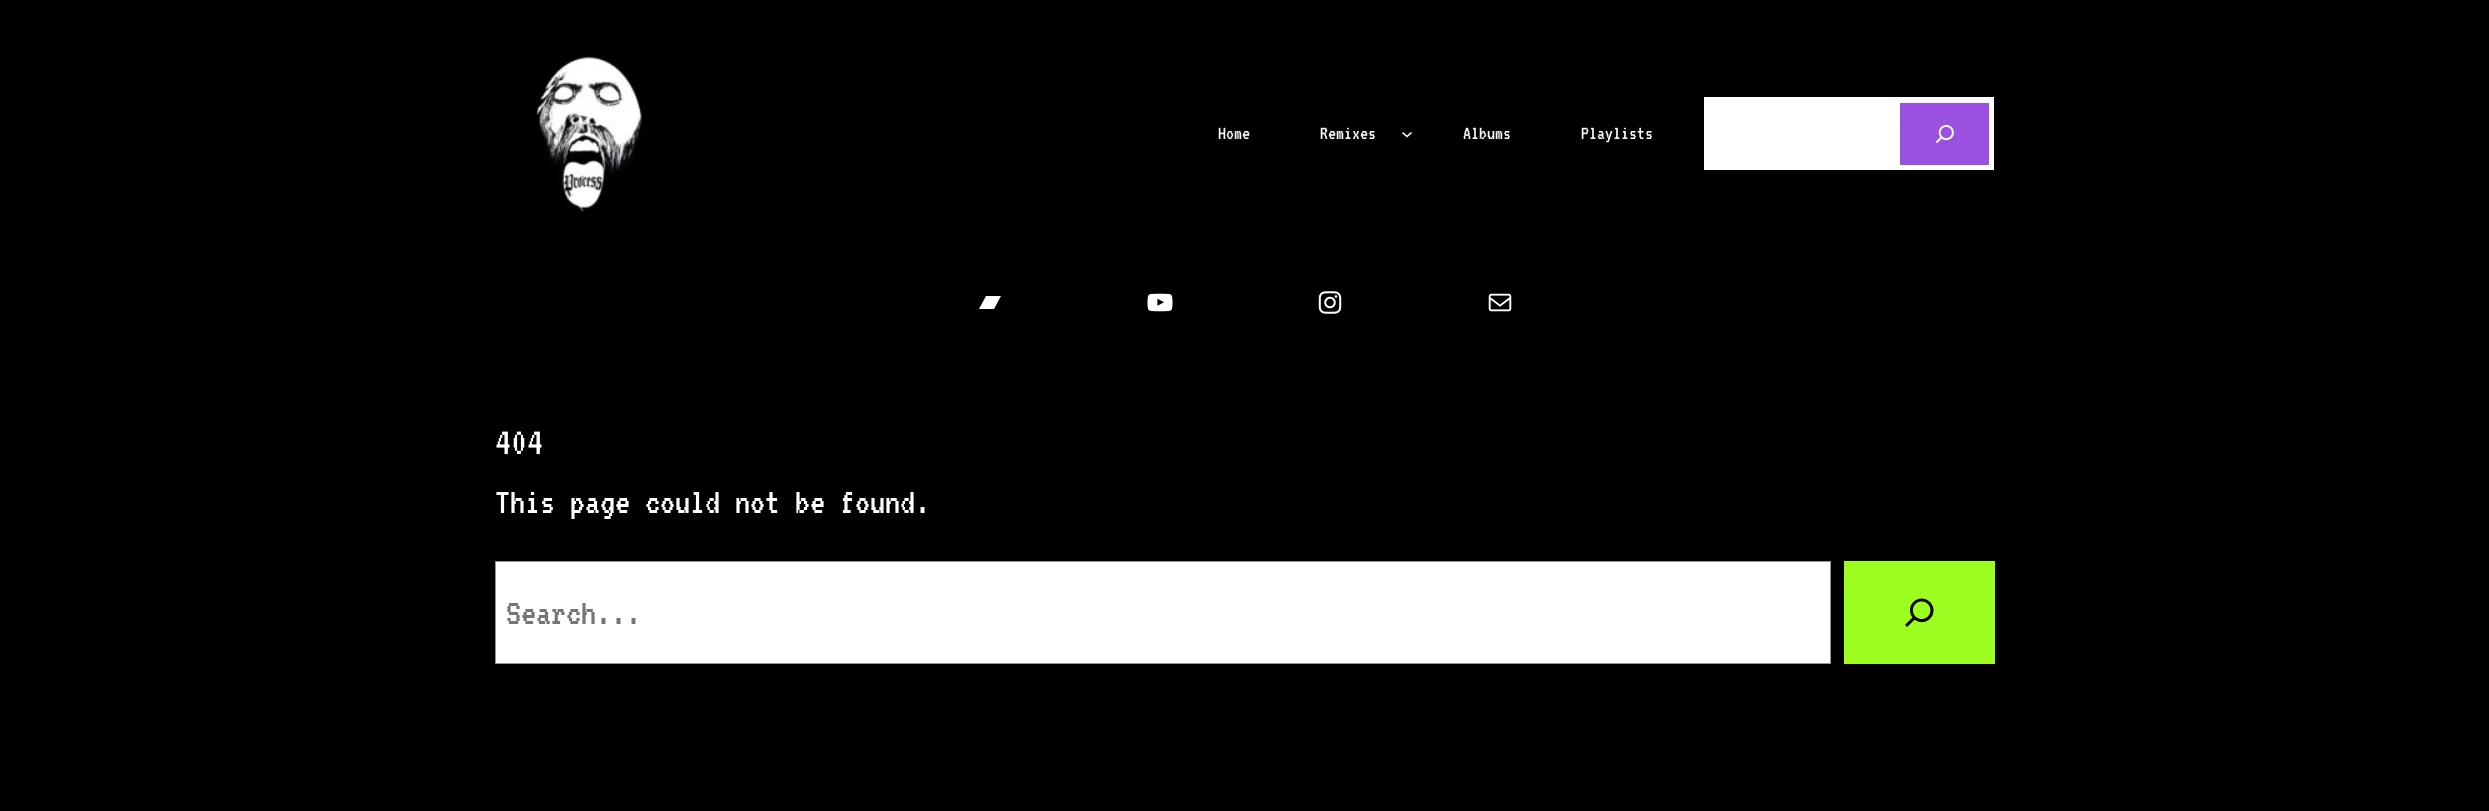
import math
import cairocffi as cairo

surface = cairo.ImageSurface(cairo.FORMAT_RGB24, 2489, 811)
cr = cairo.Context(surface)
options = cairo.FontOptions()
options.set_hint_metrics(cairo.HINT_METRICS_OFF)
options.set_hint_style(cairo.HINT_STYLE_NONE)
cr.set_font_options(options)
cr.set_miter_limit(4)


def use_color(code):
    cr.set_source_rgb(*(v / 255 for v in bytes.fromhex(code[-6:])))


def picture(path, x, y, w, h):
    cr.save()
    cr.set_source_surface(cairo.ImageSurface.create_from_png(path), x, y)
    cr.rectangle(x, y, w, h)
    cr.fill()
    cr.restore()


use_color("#000000")
cr.paint()
picture("img1.png", 535, 52, 109, 168)
cr.select_font_face("VT323")
cr.set_font_size(20)
use_color("#ffffff")
cr.move_to(1218, 139)
cr.show_text("Home")
cr.move_to(1320, 139)
cr.show_text("Remixes")
cr.new_path()
cr.move_to(1402.5, 132.5)
cr.line_to(1407, 136.5)
cr.line_to(1411.5, 132.5)
cr.set_line_width(1.5)
cr.stroke()
cr.move_to(1463, 139)
cr.show_text("Albums")
cr.move_to(1581, 139)
cr.show_text("Playlists")
cr.rectangle(1704, 97, 290, 73)
cr.fill()
use_color("#9b51e0")
cr.rectangle(1900, 103, 89, 62)
cr.fill()
picture("img2.png", 1935, 125, 19, 19)
use_color("#ffffff")
cr.new_path()
cr.move_to(994, 309)
cr.line_to(979, 309)
cr.line_to(986, 296)
cr.line_to(1001, 296)
cr.line_to(994, 309)
cr.fill()
picture("img3.png", 1147, 293, 26, 19)
picture("img4.png", 1318, 291, 24, 23)
picture("img5.png", 1488, 293, 24, 19)
cr.set_font_size(40)
cr.move_to(495, 454)
cr.show_text("404")
cr.set_font_size(37.5)
cr.move_to(495, 513)
cr.show_text("This page could not be found.")
cr.rectangle(495.5, 561.5, 1335, 102)
cr.fill_preserve()
use_color("#949494")
cr.set_line_width(1)
cr.stroke()
use_color("#757575")
cr.move_to(506, 624)
cr.show_text("Search...")
use_color("#9dff20")
cr.rectangle(1844, 561, 151, 103)
cr.fill()
picture("img6.png", 1905, 598, 29, 29)
surface.write_to_png("result.png")
